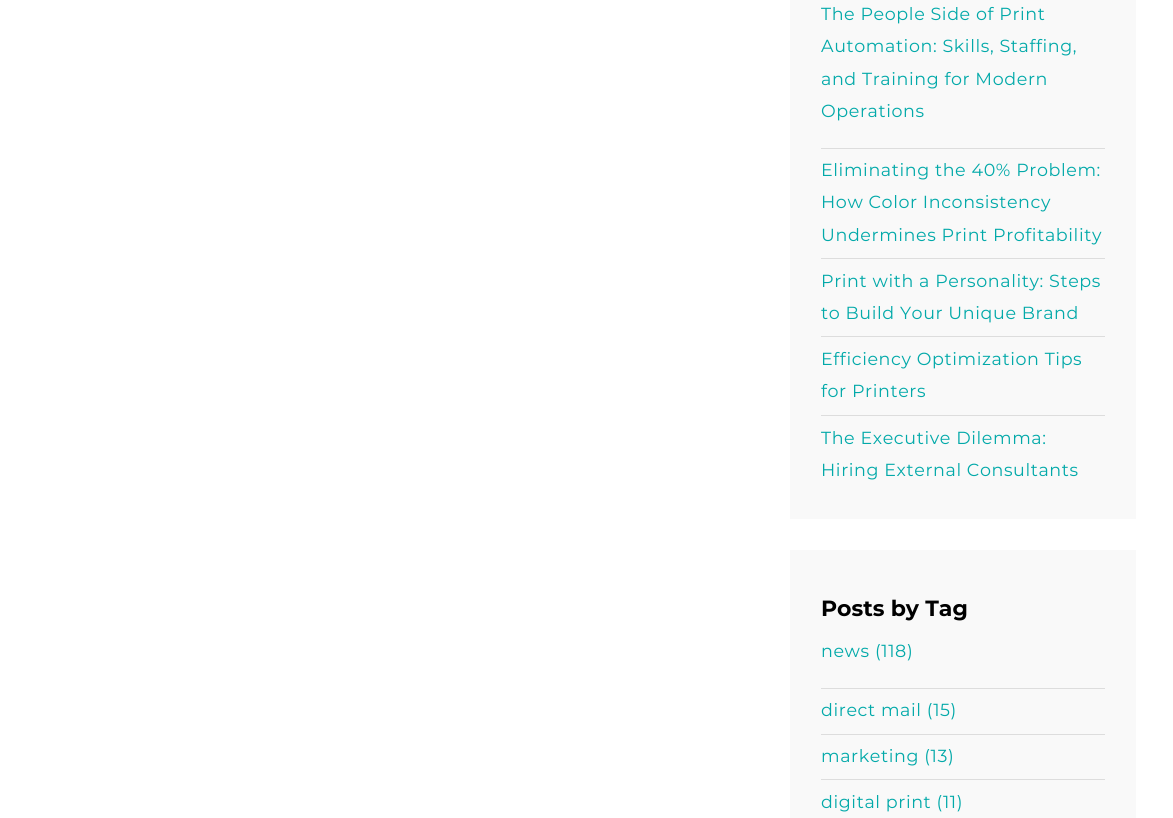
import math
import cairocffi as cairo

surface = cairo.ImageSurface(cairo.FORMAT_RGB24, 1173, 818)
cr = cairo.Context(surface)
options = cairo.FontOptions()
options.set_hint_metrics(cairo.HINT_METRICS_OFF)
options.set_hint_style(cairo.HINT_STYLE_NONE)
cr.set_font_options(options)
cr.set_miter_limit(4)


def use_color(code):
    cr.set_source_rgb(*(v / 255 for v in bytes.fromhex(code[-6:])))


def spaced_text(x, y, s, letter, word):
    cr.move_to(x, y)
    for ch in s:
        cr.show_text(ch)
        cr.rel_move_to(letter + word * (ch == ' '), 0)


use_color("#ffffff")
cr.paint()
use_color("#f9f9f9")
cr.rectangle(790, 0, 346, 519)
cr.fill()
cr.select_font_face("Montserrat")
cr.set_font_size(17.5)
use_color("#02a9a9")
spaced_text(821, 20, "The People Side of Print", 0.6, 0)
spaced_text(821, 52, "Automation: Skills, Staffing,", 0.6, 0)
spaced_text(821, 85, "and Training for Modern", 0.6, 0)
spaced_text(821, 117, "Operations", 0.6, 0)
use_color("#dddddd")
cr.rectangle(821, 148, 284, 1)
cr.fill()
use_color("#02a9a9")
spaced_text(821, 176, "Eliminating the 40% Problem:", 0.6, 0)
spaced_text(821, 208, "How Color Inconsistency", 0.6, 0)
spaced_text(821, 241, "Undermines Print Profitability", 0.6, 0)
use_color("#dddddd")
cr.rectangle(821, 258, 284, 1)
cr.fill()
use_color("#02a9a9")
spaced_text(821, 287, "Print with a Personality: Steps", 0.6, 0)
spaced_text(821, 319, "to Build Your Unique Brand", 0.6, 0)
use_color("#dddddd")
cr.rectangle(821, 336, 284, 1)
cr.fill()
use_color("#02a9a9")
spaced_text(821, 365, "Efficiency Optimization Tips", 0.6, 0)
spaced_text(821, 397, "for Printers", 0.6, 0)
use_color("#dddddd")
cr.rectangle(821, 415, 284, 1)
cr.fill()
use_color("#02a9a9")
spaced_text(821, 444, "The Executive Dilemma:", 0.6, 0)
spaced_text(821, 476, "Hiring External Consultants", 0.6, 0)
use_color("#f9f9f9")
cr.rectangle(790, 550, 346, 268)
cr.fill()
cr.select_font_face("Montserrat", cairo.FONT_SLANT_NORMAL, cairo.FONT_WEIGHT_BOLD)
cr.set_font_size(22)
use_color("#000000")
cr.move_to(821, 616)
cr.show_text("Posts by Tag")
cr.select_font_face("Montserrat")
cr.set_font_size(17.5)
use_color("#02a9a9")
spaced_text(821, 657, "news (118)", 0.6, 0)
use_color("#dddddd")
cr.rectangle(821, 688, 284, 1)
cr.fill()
use_color("#02a9a9")
spaced_text(821, 716, "direct mail (15)", 0.6, 0)
use_color("#dddddd")
cr.rectangle(821, 734, 284, 1)
cr.fill()
use_color("#02a9a9")
spaced_text(821, 762, "marketing (13)", 0.6, 0)
use_color("#dddddd")
cr.rectangle(821, 779, 284, 1)
cr.fill()
use_color("#02a9a9")
spaced_text(821, 808, "digital print (11)", 0.6, 0)
surface.write_to_png("result.png")
